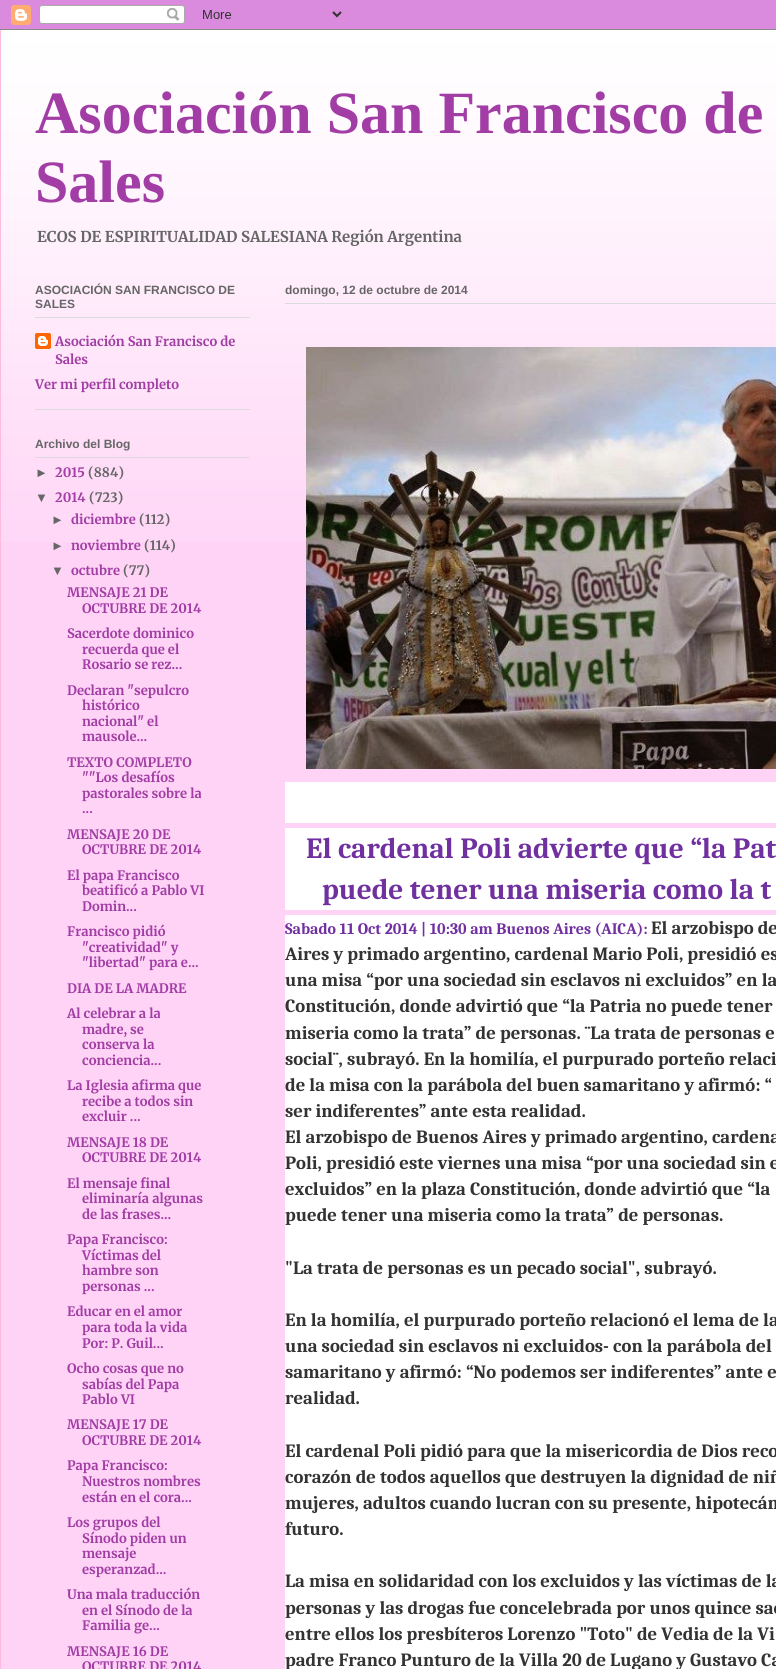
import math
import cairocffi as cairo

surface = cairo.ImageSurface(cairo.FORMAT_RGB24, 776, 1669)
cr = cairo.Context(surface)
options = cairo.FontOptions()
options.set_hint_metrics(cairo.HINT_METRICS_OFF)
options.set_hint_style(cairo.HINT_STYLE_NONE)
cr.set_font_options(options)
cr.set_miter_limit(4)


def use_color(code):
    cr.set_source_rgb(*(v / 255 for v in bytes.fromhex(code[-6:])))


def picture(path, x, y, w, h):
    cr.save()
    cr.set_source_surface(cairo.ImageSurface.create_from_png(path), x, y)
    cr.rectangle(x, y, w, h)
    cr.fill()
    cr.restore()


use_color("#c23dc6")
cr.paint()
picture("img1.png", 0, 0, 776, 30)
use_color("#ffd3f6")
cr.rectangle(1, 37, 775, 1632)
cr.fill()
picture("img2.png", 1, 30, 775, 512)
use_color("#ffbbdd")
cr.rectangle(0, 30, 1, 1639)
cr.fill()
cr.select_font_face("Liberation Serif", cairo.FONT_SLANT_NORMAL, cairo.FONT_WEIGHT_BOLD)
cr.set_font_size(60)
use_color("#a13da5")
cr.move_to(35, 133)
cr.show_text("Asociación San Francisco de")
cr.move_to(35, 202)
cr.show_text("Sales")
cr.select_font_face("Merriweather Light")
cr.set_font_size(14.95)
use_color("#666666")
cr.move_to(37, 242)
cr.show_text("ECOS DE ESPIRITUALIDAD SALESIANA Región Argentina")
use_color("#dbdbdb")
cr.rectangle(35, 409, 215, 1)
cr.fill()
cr.rectangle(35, 317, 215, 1)
cr.fill()
cr.select_font_face("Liberation Sans", cairo.FONT_SLANT_NORMAL, cairo.FONT_WEIGHT_BOLD)
cr.set_font_size(12)
use_color("#666666")
cr.move_to(35, 294)
cr.show_text("ASOCIACIÓN SAN FRANCISCO DE")
cr.move_to(35, 308)
cr.show_text("SALES")
picture("img3.png", 35, 333, 16, 16)
cr.select_font_face("Merriweather Light")
cr.set_font_size(13)
use_color("#a13da5")
cr.move_to(55, 346)
cr.show_text("Asociación San Francisco de")
cr.move_to(55, 364)
cr.show_text("Sales")
cr.move_to(35, 389)
cr.show_text("Ver mi perfil completo")
use_color("#dbdbdb")
cr.rectangle(35, 457, 215, 1)
cr.fill()
cr.select_font_face("Liberation Sans", cairo.FONT_SLANT_NORMAL, cairo.FONT_WEIGHT_BOLD)
cr.set_font_size(12)
use_color("#666666")
cr.move_to(35, 448)
cr.show_text("Archivo del Blog")
cr.set_font_size(13)
cr.move_to(35, 477)
cr.show_text("►")
cr.select_font_face("Merriweather Light")
use_color("#a13da5")
cr.move_to(55, 477)
cr.show_text("2015")
use_color("#666666")
cr.move_to(88, 477)
cr.show_text("(884)")
cr.select_font_face("Liberation Sans", cairo.FONT_SLANT_NORMAL, cairo.FONT_WEIGHT_BOLD)
cr.move_to(35, 502)
cr.show_text("▼")
cr.select_font_face("Merriweather Light")
use_color("#a13da5")
cr.move_to(55, 502)
cr.show_text("2014")
use_color("#666666")
cr.move_to(89, 502)
cr.show_text("(723)")
cr.select_font_face("Liberation Sans", cairo.FONT_SLANT_NORMAL, cairo.FONT_WEIGHT_BOLD)
cr.move_to(51, 524)
cr.show_text("►")
cr.select_font_face("Merriweather Light")
use_color("#a13da5")
cr.move_to(71, 524)
cr.show_text("diciembre")
use_color("#666666")
cr.move_to(139, 524)
cr.show_text("(112)")
cr.select_font_face("Liberation Sans", cairo.FONT_SLANT_NORMAL, cairo.FONT_WEIGHT_BOLD)
cr.move_to(51, 550)
cr.show_text("►")
cr.select_font_face("Merriweather Light")
use_color("#a13da5")
cr.move_to(71, 550)
cr.show_text("noviembre")
use_color("#666666")
cr.move_to(144, 550)
cr.show_text("(114)")
cr.select_font_face("Liberation Sans", cairo.FONT_SLANT_NORMAL, cairo.FONT_WEIGHT_BOLD)
cr.move_to(51, 575)
cr.show_text("▼")
cr.select_font_face("Merriweather Light")
use_color("#a13da5")
cr.move_to(71, 575)
cr.show_text("octubre")
use_color("#666666")
cr.move_to(123, 575)
cr.show_text("(77)")
use_color("#a13da5")
cr.move_to(67, 597)
cr.show_text("MENSAJE 21 DE")
cr.move_to(82, 613)
cr.show_text("OCTUBRE DE 2014")
cr.move_to(67, 638)
cr.show_text("Sacerdote dominico")
cr.move_to(82, 654)
cr.show_text("recuerda que el")
cr.move_to(82, 669)
cr.show_text("Rosario se rez...")
cr.move_to(67, 695)
cr.show_text("Declaran \"sepulcro")
cr.move_to(82, 710)
cr.show_text("histórico")
cr.move_to(82, 726)
cr.show_text("nacional\" el")
cr.move_to(82, 741)
cr.show_text("mausole...")
cr.move_to(67, 767)
cr.show_text("TEXTO COMPLETO")
cr.move_to(82, 782)
cr.show_text("\"\"Los desafíos")
cr.move_to(82, 798)
cr.show_text("pastorales sobre la")
cr.move_to(82, 813)
cr.show_text("...")
cr.move_to(67, 839)
cr.show_text("MENSAJE 20 DE")
cr.move_to(82, 854)
cr.show_text("OCTUBRE DE 2014")
cr.move_to(67, 880)
cr.show_text("El papa Francisco")
cr.move_to(82, 895)
cr.show_text("beatificó a Pablo VI")
cr.move_to(82, 911)
cr.show_text("Domin...")
cr.move_to(67, 936)
cr.show_text("Francisco pidió")
cr.move_to(82, 952)
cr.show_text("\"creatividad\" y")
cr.move_to(82, 967)
cr.show_text("\"libertad\" para e...")
cr.move_to(67, 993)
cr.show_text("DIA DE LA MADRE")
cr.move_to(67, 1018)
cr.show_text("Al celebrar a la")
cr.move_to(82, 1034)
cr.show_text("madre, se")
cr.move_to(82, 1049)
cr.show_text("conserva la")
cr.move_to(82, 1065)
cr.show_text("conciencia...")
cr.move_to(67, 1090)
cr.show_text("La Iglesia afirma que")
cr.move_to(82, 1106)
cr.show_text("recibe a todos sin")
cr.move_to(82, 1121)
cr.show_text("excluir ...")
cr.move_to(67, 1147)
cr.show_text("MENSAJE 18 DE")
cr.move_to(82, 1162)
cr.show_text("OCTUBRE DE 2014")
cr.move_to(67, 1188)
cr.show_text("El mensaje final")
cr.move_to(82, 1203)
cr.show_text("eliminaría algunas")
cr.move_to(82, 1219)
cr.show_text("de las frases...")
cr.move_to(67, 1244)
cr.show_text("Papa Francisco:")
cr.move_to(82, 1260)
cr.show_text("Víctimas del")
cr.move_to(82, 1275)
cr.show_text("hambre son")
cr.move_to(82, 1291)
cr.show_text("personas ...")
cr.move_to(67, 1316)
cr.show_text("Educar en el amor")
cr.move_to(82, 1332)
cr.show_text("para toda la vida")
cr.move_to(82, 1348)
cr.show_text("Por: P. Guil...")
cr.move_to(67, 1373)
cr.show_text("Ocho cosas que no")
cr.move_to(82, 1389)
cr.show_text("sabías del Papa")
cr.move_to(82, 1404)
cr.show_text("Pablo VI")
cr.move_to(67, 1429)
cr.show_text("MENSAJE 17 DE")
cr.move_to(82, 1445)
cr.show_text("OCTUBRE DE 2014")
cr.move_to(67, 1470)
cr.show_text("Papa Francisco:")
cr.move_to(82, 1486)
cr.show_text("Nuestros nombres")
cr.move_to(82, 1502)
cr.show_text("están en el cora...")
cr.move_to(67, 1527)
cr.show_text("Los grupos del")
cr.move_to(82, 1543)
cr.show_text("Sínodo piden un")
cr.move_to(82, 1558)
cr.show_text("mensaje")
cr.move_to(82, 1574)
cr.show_text("esperanzad...")
cr.move_to(67, 1599)
cr.show_text("Una mala traducción")
cr.move_to(82, 1615)
cr.show_text("en el Sínodo de la")
cr.move_to(82, 1630)
cr.show_text("Familia ge...")
cr.move_to(67, 1656)
cr.show_text("MENSAJE 16 DE")
cr.move_to(82, 1671)
cr.show_text("OCTUBRE DE 2014")
use_color("#dbdbdb")
cr.rectangle(285, 303, 491, 1)
cr.fill()
cr.select_font_face("Liberation Sans", cairo.FONT_SLANT_NORMAL, cairo.FONT_WEIGHT_BOLD)
cr.set_font_size(12)
use_color("#666666")
cr.move_to(285, 294)
cr.show_text("domingo, 12 de octubre de 2014")
picture("img4.png", 306, 347, 470, 422)
use_color("#ffffff")
cr.rectangle(285, 782, 491, 41)
cr.fill()
cr.rectangle(285, 828, 491, 82)
cr.fill()
cr.select_font_face("Caladea", cairo.FONT_SLANT_NORMAL, cairo.FONT_WEIGHT_BOLD)
cr.set_font_size(29.3)
use_color("#7030a0")
cr.move_to(306, 858)
cr.show_text("El cardenal Poli advierte que “la Pat")
cr.move_to(322, 899)
cr.show_text("puede tener una miseria como la t")
use_color("#ffffff")
cr.rectangle(285, 915, 491, 754)
cr.fill()
cr.set_font_size(16)
use_color("#7030a0")
cr.move_to(285, 934)
cr.show_text("Sabado 11 Oct 2014 | 10:30 am Buenos Aires (AICA):")
cr.set_font_size(18.7)
use_color("#333333")
cr.move_to(651, 934)
cr.show_text("El arzobispo de")
cr.move_to(285, 960)
cr.show_text("Aires y primado argentino, cardenal Mario Poli, presidió es")
cr.move_to(285, 986)
cr.show_text("una misa “por una sociedad sin esclavos ni excluidos” en la")
cr.move_to(285, 1012)
cr.show_text("Constitución, donde advirtió que “la Patria no puede tener")
cr.move_to(285, 1039)
cr.show_text("miseria como la trata” de personas. ¨La trata de personas e")
cr.move_to(285, 1065)
cr.show_text("social¨, subrayó. En la homilía, el purpurado porteño relaci")
cr.move_to(285, 1091)
cr.show_text("de la misa con la parábola del buen samaritano y afirmó: “")
cr.move_to(285, 1117)
cr.show_text("ser indiferentes” ante esta realidad.")
cr.move_to(285, 1143)
cr.show_text("El arzobispo de Buenos Aires y primado argentino, cardena")
cr.move_to(285, 1169)
cr.show_text("Poli, presidió este viernes una misa “por una sociedad sin e")
cr.move_to(285, 1195)
cr.show_text("excluidos” en la plaza Constitución, donde advirtió que “la")
cr.move_to(285, 1221)
cr.show_text("puede tener una miseria como la trata” de personas.")
cr.move_to(285, 1274)
cr.show_text("\"La trata de personas es un pecado social\", subrayó.")
cr.move_to(285, 1326)
cr.show_text("En la homilía, el purpurado porteño relacionó el lema de la")
cr.move_to(285, 1352)
cr.show_text("una sociedad sin esclavos ni excluidos- con la parábola del")
cr.move_to(285, 1378)
cr.show_text("samaritano y afirmó: “No podemos ser indiferentes” ante e")
cr.move_to(285, 1404)
cr.show_text("realidad.")
cr.move_to(285, 1457)
cr.show_text("El cardenal Poli pidió para que la misericordia de Dios reco")
cr.move_to(285, 1483)
cr.show_text("corazón de todos aquellos que destruyen la dignidad de niñ")
cr.move_to(285, 1509)
cr.show_text("mujeres, adultos cuando lucran con su presente, hipotecán")
cr.move_to(285, 1535)
cr.show_text("futuro.")
cr.move_to(285, 1587)
cr.show_text("La misa en solidaridad con los excluidos y las víctimas de la")
cr.move_to(285, 1614)
cr.show_text("personas y las drogas fue concelebrada por unos quince sac")
cr.move_to(285, 1640)
cr.show_text("entre ellos los presbíteros Lorenzo \"Toto\" de Vedia de la Vi")
cr.move_to(285, 1666)
cr.show_text("padre Franco Punturo de la Villa 20 de Lugano y Gustavo Ca")
surface.write_to_png("result.png")
